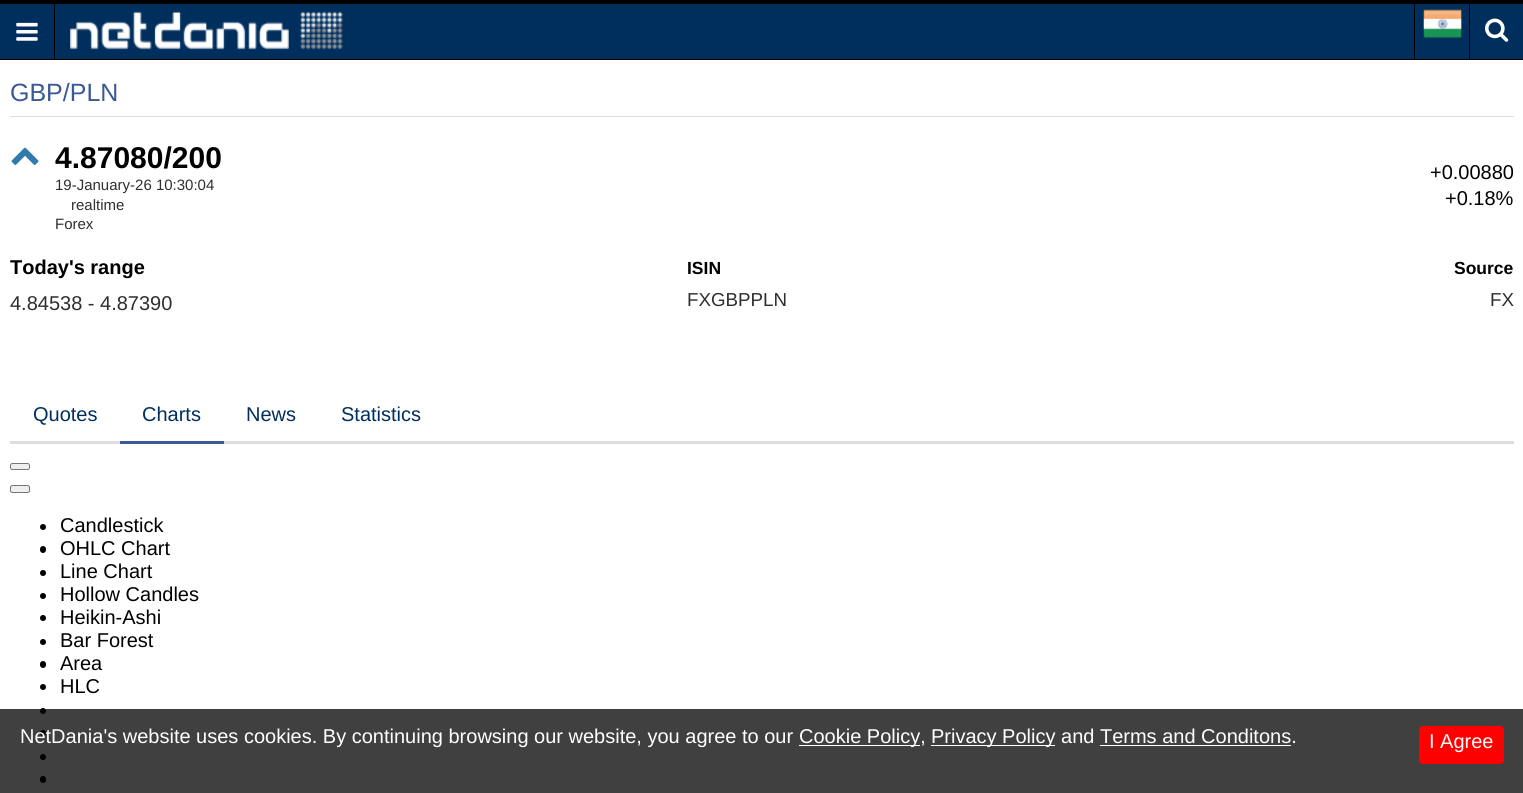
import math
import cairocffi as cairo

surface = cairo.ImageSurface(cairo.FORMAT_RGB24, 1523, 793)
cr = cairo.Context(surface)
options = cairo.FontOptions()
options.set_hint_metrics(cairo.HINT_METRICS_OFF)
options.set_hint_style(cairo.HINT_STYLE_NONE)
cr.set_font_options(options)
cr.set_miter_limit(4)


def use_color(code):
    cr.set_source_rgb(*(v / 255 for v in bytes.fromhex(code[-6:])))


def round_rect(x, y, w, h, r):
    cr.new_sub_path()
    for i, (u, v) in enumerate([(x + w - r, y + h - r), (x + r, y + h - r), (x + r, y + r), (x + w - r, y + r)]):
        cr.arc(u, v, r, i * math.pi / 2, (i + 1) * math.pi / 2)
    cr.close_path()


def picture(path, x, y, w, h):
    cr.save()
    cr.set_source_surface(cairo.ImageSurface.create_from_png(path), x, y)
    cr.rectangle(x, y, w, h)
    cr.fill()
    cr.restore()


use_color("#ffffff")
cr.paint()
use_color("#002e5d")
cr.rectangle(0, 4, 1523, 55)
cr.fill()
use_color("#000000")
cr.rectangle(0, 0, 1523, 4)
cr.fill()
cr.rectangle(0, 59, 1523, 1)
cr.fill()
cr.rectangle(54, 4, 1, 55)
cr.fill()
picture("img1.png", 16, 22, 22, 19)
picture("img2.png", 70, 11, 273, 39)
cr.rectangle(1414, 4, 1, 55)
cr.fill()
picture("img3.png", 1423, 9, 39, 29)
cr.rectangle(1469, 4, 1, 55)
cr.fill()
picture("img4.png", 1485, 18, 24, 24)
use_color("#dddddd")
cr.rectangle(10, 116, 1504, 1)
cr.fill()
cr.select_font_face("Liberation Sans")
cr.set_font_size(25)
use_color("#3b5998")
cr.move_to(10, 101)
cr.show_text("GBP/PLN")
picture("img5.png", 11, 147, 28, 18)
cr.select_font_face("Liberation Sans", cairo.FONT_SLANT_NORMAL, cairo.FONT_WEIGHT_BOLD)
cr.set_font_size(30)
use_color("#000000")
cr.move_to(55, 168)
cr.show_text("4.87080/200")
cr.select_font_face("Liberation Sans")
cr.set_font_size(15)
use_color("#2f2f2f")
cr.move_to(55, 190)
cr.show_text("19-January-26 10:30:04")
cr.move_to(71, 210)
cr.show_text("realtime")
cr.move_to(55, 229)
cr.show_text("Forex")
cr.set_font_size(20)
use_color("#000000")
cr.move_to(1430, 179)
cr.show_text("+0.00880")
cr.move_to(1445, 205)
cr.show_text("+0.18%")
cr.select_font_face("Liberation Sans", cairo.FONT_SLANT_NORMAL, cairo.FONT_WEIGHT_BOLD)
cr.move_to(10, 274)
cr.show_text("Today's range")
cr.select_font_face("Liberation Sans")
use_color("#2f2f2f")
cr.move_to(10, 310)
cr.show_text("4.84538 - 4.87390")
cr.select_font_face("Liberation Sans", cairo.FONT_SLANT_NORMAL, cairo.FONT_WEIGHT_BOLD)
cr.set_font_size(17.5)
use_color("#000000")
cr.move_to(687, 274)
cr.show_text("ISIN")
cr.select_font_face("Liberation Sans")
cr.set_font_size(18.75)
use_color("#2f2f2f")
cr.move_to(687, 306)
cr.show_text("FXGBPPLN")
cr.select_font_face("Liberation Sans", cairo.FONT_SLANT_NORMAL, cairo.FONT_WEIGHT_BOLD)
cr.set_font_size(17.5)
use_color("#000000")
cr.move_to(1454, 274)
cr.show_text("Source")
cr.select_font_face("Liberation Sans")
cr.set_font_size(18.75)
use_color("#2f2f2f")
cr.move_to(1490, 306)
cr.show_text("FX")
cr.set_font_size(20)
use_color("#002e5d")
cr.move_to(33, 421)
cr.show_text("Quotes")
use_color("#dddddd")
cr.rectangle(10, 441, 1504, 3)
cr.fill()
use_color("#3b5998")
cr.rectangle(120, 441, 104, 3)
cr.fill()
use_color("#002e5d")
cr.move_to(142, 421)
cr.show_text("Charts")
cr.move_to(246, 421)
cr.show_text("News")
cr.move_to(341, 421)
cr.show_text("Statistics")
use_color("#efefef")
round_rect(10.5, 463.5, 19, 6, 2)
cr.fill_preserve()
use_color("#767676")
cr.set_line_width(1)
cr.stroke()
use_color("#efefef")
round_rect(10.5, 485.5, 19, 7, 2)
cr.fill_preserve()
use_color("#767676")
cr.stroke()
use_color("#000000")
cr.arc(43, 527, 3, 0, 2 * math.pi)
cr.fill()
cr.move_to(60, 532)
cr.show_text("Candlestick")
round_rect(40, 546, 6, 7, 3)
cr.fill()
cr.move_to(60, 555)
cr.show_text("OHLC Chart")
cr.new_path()
cr.arc(43, 573, 3, 0, 2 * math.pi)
cr.fill()
cr.move_to(60, 578)
cr.show_text("Line Chart")
cr.new_path()
cr.arc(43, 596, 3, 0, 2 * math.pi)
cr.fill()
cr.move_to(60, 601)
cr.show_text("Hollow Candles")
cr.new_path()
cr.arc(43, 618, 3, 0, 2 * math.pi)
cr.fill()
cr.move_to(60, 624)
cr.show_text("Heikin-Ashi")
cr.new_path()
cr.arc(43, 642, 3, 0, 2 * math.pi)
cr.fill()
cr.move_to(60, 647)
cr.show_text("Bar Forest")
round_rect(40, 661, 6, 7, 3)
cr.fill()
cr.move_to(60, 670)
cr.show_text("Area")
cr.new_path()
cr.arc(43, 687, 3, 0, 2 * math.pi)
cr.fill()
cr.move_to(60, 693)
cr.show_text("HLC")
cr.new_path()
cr.arc(43, 711, 3, 0, 2 * math.pi)
cr.fill()
cr.arc(43, 733, 3, 0, 2 * math.pi)
cr.fill()
cr.arc(43, 757, 3, 0, 2 * math.pi)
cr.fill()
round_rect(40, 776, 6, 7, 3)
cr.fill()
cr.set_source_rgba(0, 0, 0, 0.75)
cr.rectangle(0, 709, 1523, 84)
cr.fill()
use_color("#ffffff")
cr.move_to(20, 743)
cr.show_text("NetDania's website uses cookies. By continuing browsing our website, you agree to our")
cr.rectangle(799, 745, 121, 1)
cr.fill()
cr.move_to(799, 743)
cr.show_text("Cookie Policy,")
cr.rectangle(931, 745, 124, 1)
cr.fill()
cr.move_to(931, 743)
cr.show_text("Privacy Policy and Terms and Conditons.")
use_color("#ff0000")
round_rect(1419, 726, 85, 38, 4)
cr.fill()
use_color("#ffffff")
cr.move_to(1429, 748)
cr.show_text("I Agree")
cr.rectangle(1100, 745, 191, 1)
cr.fill()
surface.write_to_png("result.png")
